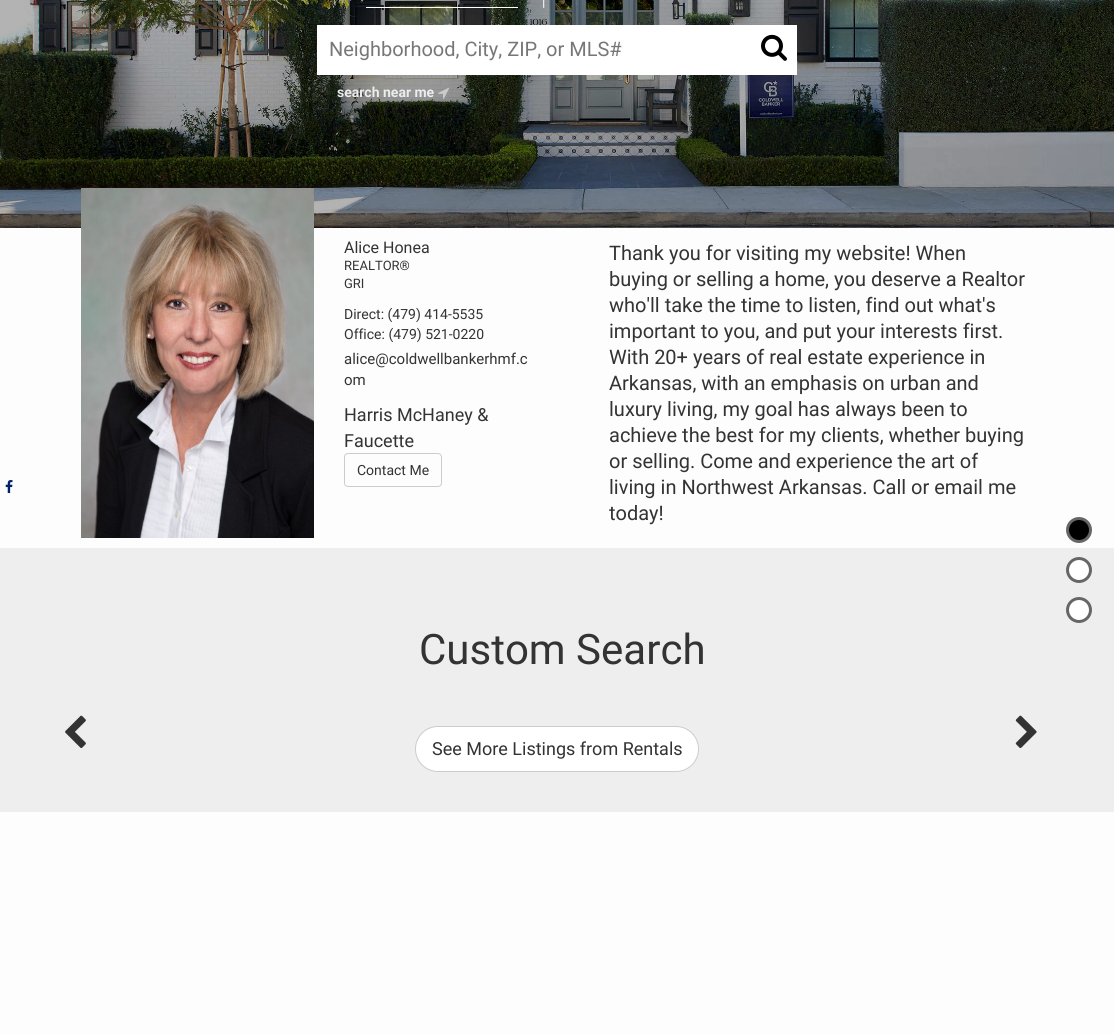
import math
import cairocffi as cairo

surface = cairo.ImageSurface(cairo.FORMAT_RGB24, 1114, 1034)
cr = cairo.Context(surface)
options = cairo.FontOptions()
options.set_hint_metrics(cairo.HINT_METRICS_OFF)
options.set_hint_style(cairo.HINT_STYLE_NONE)
cr.set_font_options(options)
cr.set_miter_limit(4)


def use_color(code):
    cr.set_source_rgb(*(v / 255 for v in bytes.fromhex(code[-6:])))


def round_rect(x, y, w, h, r):
    cr.new_sub_path()
    for i, (u, v) in enumerate([(x + w - r, y + h - r), (x + r, y + h - r), (x + r, y + r), (x + w - r, y + r)]):
        cr.arc(u, v, r, i * math.pi / 2, (i + 1) * math.pi / 2)
    cr.close_path()


def picture(path, x, y, w, h):
    cr.save()
    cr.set_source_surface(cairo.ImageSurface.create_from_png(path), x, y)
    cr.rectangle(x, y, w, h)
    cr.fill()
    cr.restore()


use_color("#fdfdfd")
cr.paint()
picture("img1.png", 0, 0, 1114, 228)
use_color("#ffffff")
cr.rectangle(366, 7, 152, 1)
cr.fill()
cr.select_font_face("Roboto")
cr.set_font_size(14)
cr.move_to(542, 6)
cr.show_text("|")
cr.rectangle(317, 25, 480, 50)
cr.fill()
cr.set_font_size(20)
use_color("#777777")
cr.move_to(329, 56)
cr.show_text("Neighborhood, City, ZIP, or MLS#")
picture("img2.png", 761, 34, 26, 27)
cr.select_font_face("Roboto", cairo.FONT_SLANT_NORMAL, cairo.FONT_WEIGHT_BOLD)
cr.set_font_size(14)
use_color("#ececec")
cr.move_to(337, 97)
cr.show_text("search near me")
picture("img3.png", 438, 88, 11, 11)
picture("img4.png", 81, 188, 233, 350)
cr.select_font_face("Roboto")
cr.set_font_size(16)
use_color("#333333")
cr.move_to(344, 253)
cr.show_text("Alice Honea")
cr.set_font_size(13)
cr.move_to(344, 270)
cr.show_text("REALTOR®")
cr.move_to(344, 288)
cr.show_text("GRI")
cr.set_font_size(14)
cr.move_to(344, 319)
cr.show_text("Direct: (479) 414-5535")
cr.move_to(344, 339)
cr.show_text("Office: (479) 521-0220")
cr.set_font_size(15)
cr.move_to(344, 364)
cr.show_text("alice@coldwellbankerhmf.c")
cr.move_to(344, 385)
cr.show_text("om")
cr.set_font_size(18)
cr.move_to(344, 421)
cr.show_text("Harris McHaney &")
cr.move_to(344, 447)
cr.show_text("Faucette")
round_rect(344.5, 453.5, 97, 33, 3.5)
use_color("#cccccc")
cr.set_line_width(1)
cr.stroke()
cr.set_font_size(14)
use_color("#333333")
cr.move_to(357, 475)
cr.show_text("Contact Me")
picture("img5.png", 5, 480, 8, 13)
cr.set_font_size(20)
cr.move_to(609, 260)
cr.show_text("Thank you for visiting my website! When")
cr.move_to(609, 286)
cr.show_text("buying or selling a home, you deserve a Realtor")
cr.move_to(609, 312)
cr.show_text("who'll take the time to listen, find out what's")
cr.move_to(609, 338)
cr.show_text("important to you, and put your interests first.")
cr.move_to(609, 364)
cr.show_text("With 20+ years of real estate experience in")
cr.move_to(609, 390)
cr.show_text("Arkansas, with an emphasis on urban and")
cr.move_to(609, 416)
cr.show_text("luxury living, my goal has always been to")
cr.move_to(609, 442)
cr.show_text("achieve the best for my clients, whether buying")
cr.move_to(609, 468)
cr.show_text("or selling. Come and experience the art of")
cr.move_to(609, 494)
cr.show_text("living in Northwest Arkansas. Call or email me")
cr.move_to(609, 520)
cr.show_text("today!")
use_color("#eeeeee")
cr.rectangle(0, 548, 1114, 264)
cr.fill()
cr.set_font_size(42)
use_color("#333333")
cr.move_to(419, 664)
cr.show_text("Custom Search")
picture("img6.png", 65, 715, 21, 33)
picture("img7.png", 1015, 715, 22, 33)
use_color("#ffffff")
round_rect(415.5, 726.5, 283, 45, 22.5)
cr.fill_preserve()
use_color("#cccccc")
cr.stroke()
cr.set_font_size(18)
use_color("#333333")
cr.move_to(432, 755)
cr.show_text("See More Listings from Rentals")
use_color("#000000")
cr.new_path()
cr.arc(1079, 530, 11.5, 0, 2 * math.pi)
cr.fill_preserve()
use_color("#666666")
cr.set_line_width(3)
cr.stroke()
use_color("#ffffff")
cr.arc(1079, 570, 11.5, 0, 2 * math.pi)
cr.fill_preserve()
use_color("#666666")
cr.stroke()
use_color("#ffffff")
cr.arc(1079, 610, 11.5, 0, 2 * math.pi)
cr.fill_preserve()
use_color("#666666")
cr.stroke()
surface.write_to_png("result.png")
